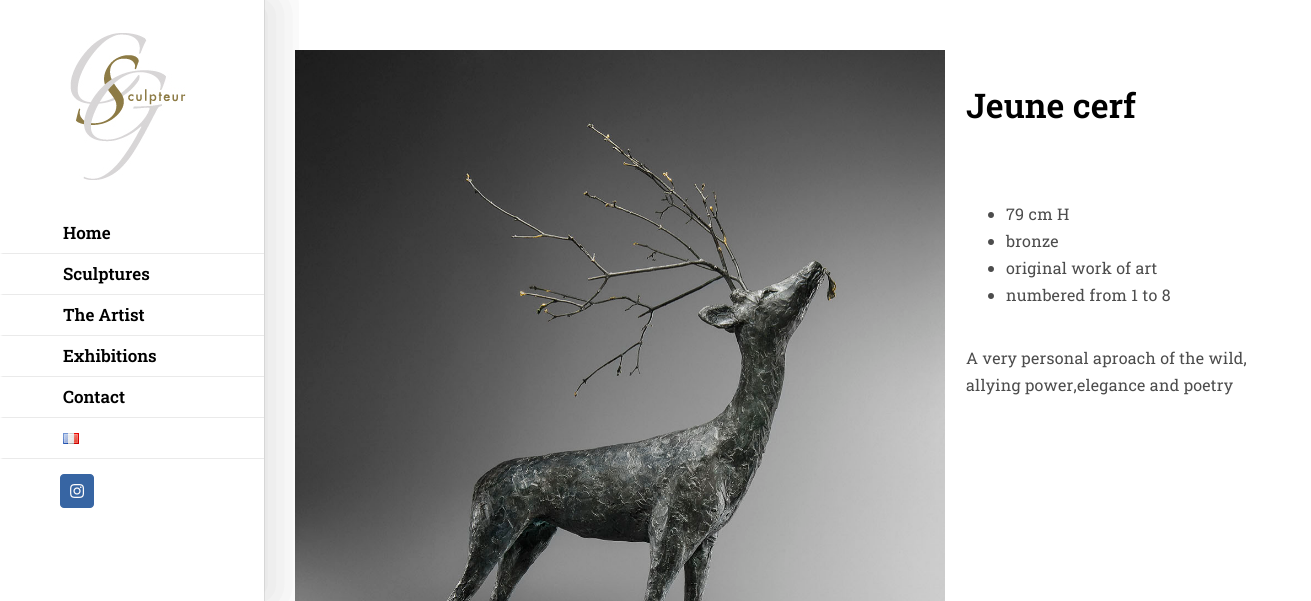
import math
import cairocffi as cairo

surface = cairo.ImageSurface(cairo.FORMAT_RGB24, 1311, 601)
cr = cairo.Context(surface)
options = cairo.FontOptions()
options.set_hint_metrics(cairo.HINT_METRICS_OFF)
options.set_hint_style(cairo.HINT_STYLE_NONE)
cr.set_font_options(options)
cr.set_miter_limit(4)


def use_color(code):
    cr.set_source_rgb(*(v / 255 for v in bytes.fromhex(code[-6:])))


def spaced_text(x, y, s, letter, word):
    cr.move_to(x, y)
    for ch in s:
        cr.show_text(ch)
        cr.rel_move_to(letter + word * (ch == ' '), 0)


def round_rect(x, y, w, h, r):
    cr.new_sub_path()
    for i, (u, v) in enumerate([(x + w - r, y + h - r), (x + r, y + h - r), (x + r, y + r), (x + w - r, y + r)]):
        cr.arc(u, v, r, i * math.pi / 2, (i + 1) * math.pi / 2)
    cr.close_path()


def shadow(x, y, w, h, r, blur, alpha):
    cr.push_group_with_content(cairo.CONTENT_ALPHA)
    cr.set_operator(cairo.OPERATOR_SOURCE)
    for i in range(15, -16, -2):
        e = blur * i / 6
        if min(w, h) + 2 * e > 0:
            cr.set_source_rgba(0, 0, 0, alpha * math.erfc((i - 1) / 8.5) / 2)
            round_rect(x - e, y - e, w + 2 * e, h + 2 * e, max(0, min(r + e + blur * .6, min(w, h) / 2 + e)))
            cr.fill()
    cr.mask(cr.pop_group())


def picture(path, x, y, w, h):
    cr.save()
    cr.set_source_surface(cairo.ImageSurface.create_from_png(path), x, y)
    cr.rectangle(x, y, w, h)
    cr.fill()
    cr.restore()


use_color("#ffffff")
cr.paint()
use_color("#eaeaea")
cr.rectangle(264, 0, 1, 601)
cr.fill()
picture("img1.png", 70, 33, 116, 147)
cr.new_path()
cr.move_to(264, 254)
cr.line_to(0, 254)
cr.line_to(3, 253)
cr.line_to(264, 253)
cr.close_path()
cr.fill()
cr.new_path()
cr.move_to(264, 295)
cr.line_to(0, 295)
cr.line_to(3, 294)
cr.line_to(264, 294)
cr.close_path()
cr.fill()
cr.new_path()
cr.move_to(264, 336)
cr.line_to(0, 336)
cr.line_to(3, 335)
cr.line_to(264, 335)
cr.close_path()
cr.fill()
cr.new_path()
cr.move_to(264, 377)
cr.line_to(0, 377)
cr.line_to(3, 376)
cr.line_to(264, 376)
cr.close_path()
cr.fill()
cr.new_path()
cr.move_to(264, 418)
cr.line_to(0, 418)
cr.line_to(3, 417)
cr.line_to(264, 417)
cr.close_path()
cr.fill()
cr.new_path()
cr.move_to(264, 459)
cr.line_to(0, 459)
cr.line_to(3, 458)
cr.line_to(264, 458)
cr.close_path()
cr.fill()
picture("img2.png", 63, 433, 16, 11)
use_color("#3765a3")
round_rect(60.5, 474.5, 33, 33, 3.5)
cr.fill_preserve()
cr.set_line_width(1)
cr.stroke()
picture("img3.png", 70, 484, 15, 14)
picture("img4.png", 295, 50, 650, 551)
cr.save()
cr.rectangle(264, 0, 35, 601)
cr.clip()
use_color("#000000")
shadow(12, 2, 260, 597, 0, 25, 0.14)
cr.restore()
cr.select_font_face("Roboto Slab SemiBold")
cr.set_font_size(17)
use_color("#000000")
cr.move_to(63, 239)
cr.show_text("Home")
cr.move_to(63, 280)
cr.show_text("Sculptures")
cr.move_to(63, 321)
cr.show_text("The Artist")
cr.move_to(63, 362)
cr.show_text("Exhibitions")
cr.move_to(63, 403)
cr.show_text("Contact")
cr.set_font_size(34)
cr.move_to(966, 118)
cr.show_text("Jeune cerf")
use_color("#4c4c4c")
cr.new_path()
cr.arc(991, 215, 3, 0, 2 * math.pi)
cr.fill()
cr.select_font_face("Roboto Slab")
cr.set_font_size(16)
spaced_text(1006, 220, "79 cm H", 0.25, 0)
cr.new_path()
cr.arc(991, 242, 3, 0, 2 * math.pi)
cr.fill()
spaced_text(1006, 247, "bronze", 0.25, 0)
cr.new_path()
cr.arc(991, 269, 3, 0, 2 * math.pi)
cr.fill()
spaced_text(1006, 274, "original work of art", 0.25, 0)
cr.new_path()
cr.arc(991, 296, 3, 0, 2 * math.pi)
cr.fill()
spaced_text(1006, 301, "numbered from 1 to 8", 0.25, 0)
spaced_text(966, 364, "A very personal aproach of the wild,", 0.25, 0)
spaced_text(966, 391, "allying power,elegance and poetry", 0.25, 0)
surface.write_to_png("result.png")
